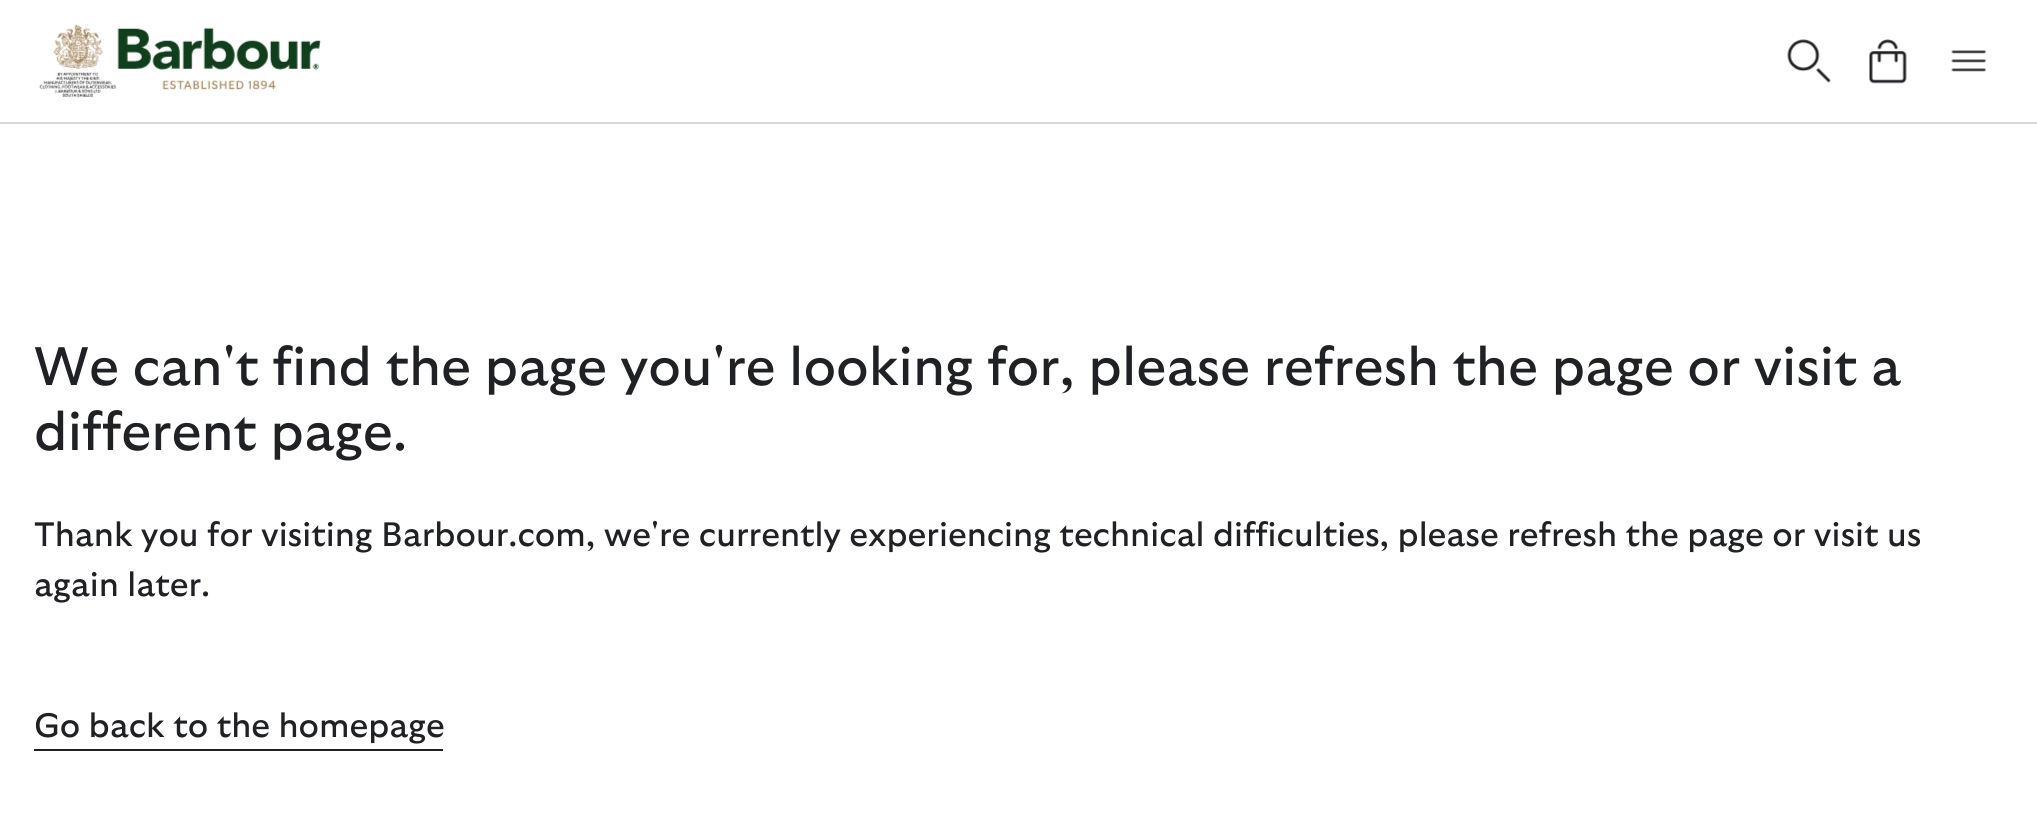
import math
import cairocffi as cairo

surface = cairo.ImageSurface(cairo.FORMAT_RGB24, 2037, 818)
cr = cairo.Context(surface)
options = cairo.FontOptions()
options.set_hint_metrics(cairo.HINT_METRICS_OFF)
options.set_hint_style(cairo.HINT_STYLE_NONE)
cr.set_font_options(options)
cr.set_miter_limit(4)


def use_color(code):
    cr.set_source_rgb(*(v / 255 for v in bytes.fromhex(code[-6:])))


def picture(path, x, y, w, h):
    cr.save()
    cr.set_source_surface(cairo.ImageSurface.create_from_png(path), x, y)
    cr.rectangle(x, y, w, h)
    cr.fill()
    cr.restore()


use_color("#ffffff")
cr.paint()
picture("img1.png", 39, 24, 282, 73)
picture("img2.png", 1787, 39, 44, 44)
picture("img3.png", 1869, 39, 38, 45)
picture("img4.png", 1951, 50, 35, 22)
use_color("#d9d9d9")
cr.rectangle(0, 122, 2037, 2)
cr.fill()
cr.select_font_face("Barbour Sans")
cr.set_font_size(54)
use_color("#202124")
cr.move_to(34, 385)
cr.show_text("We can't find the page you're looking for, please refresh the page or visit a")
cr.move_to(34, 450)
cr.show_text("different page.")
cr.set_font_size(33.77)
cr.move_to(34, 546)
cr.show_text("Thank you for visiting Barbour.com, we're currently experiencing technical difficulties, please refresh the page or visit us")
cr.move_to(34, 596)
cr.show_text("again later.")
cr.move_to(34, 737)
cr.show_text("Go back to the homepage")
cr.rectangle(34, 749, 409, 2)
cr.fill()
surface.write_to_png("result.png")
